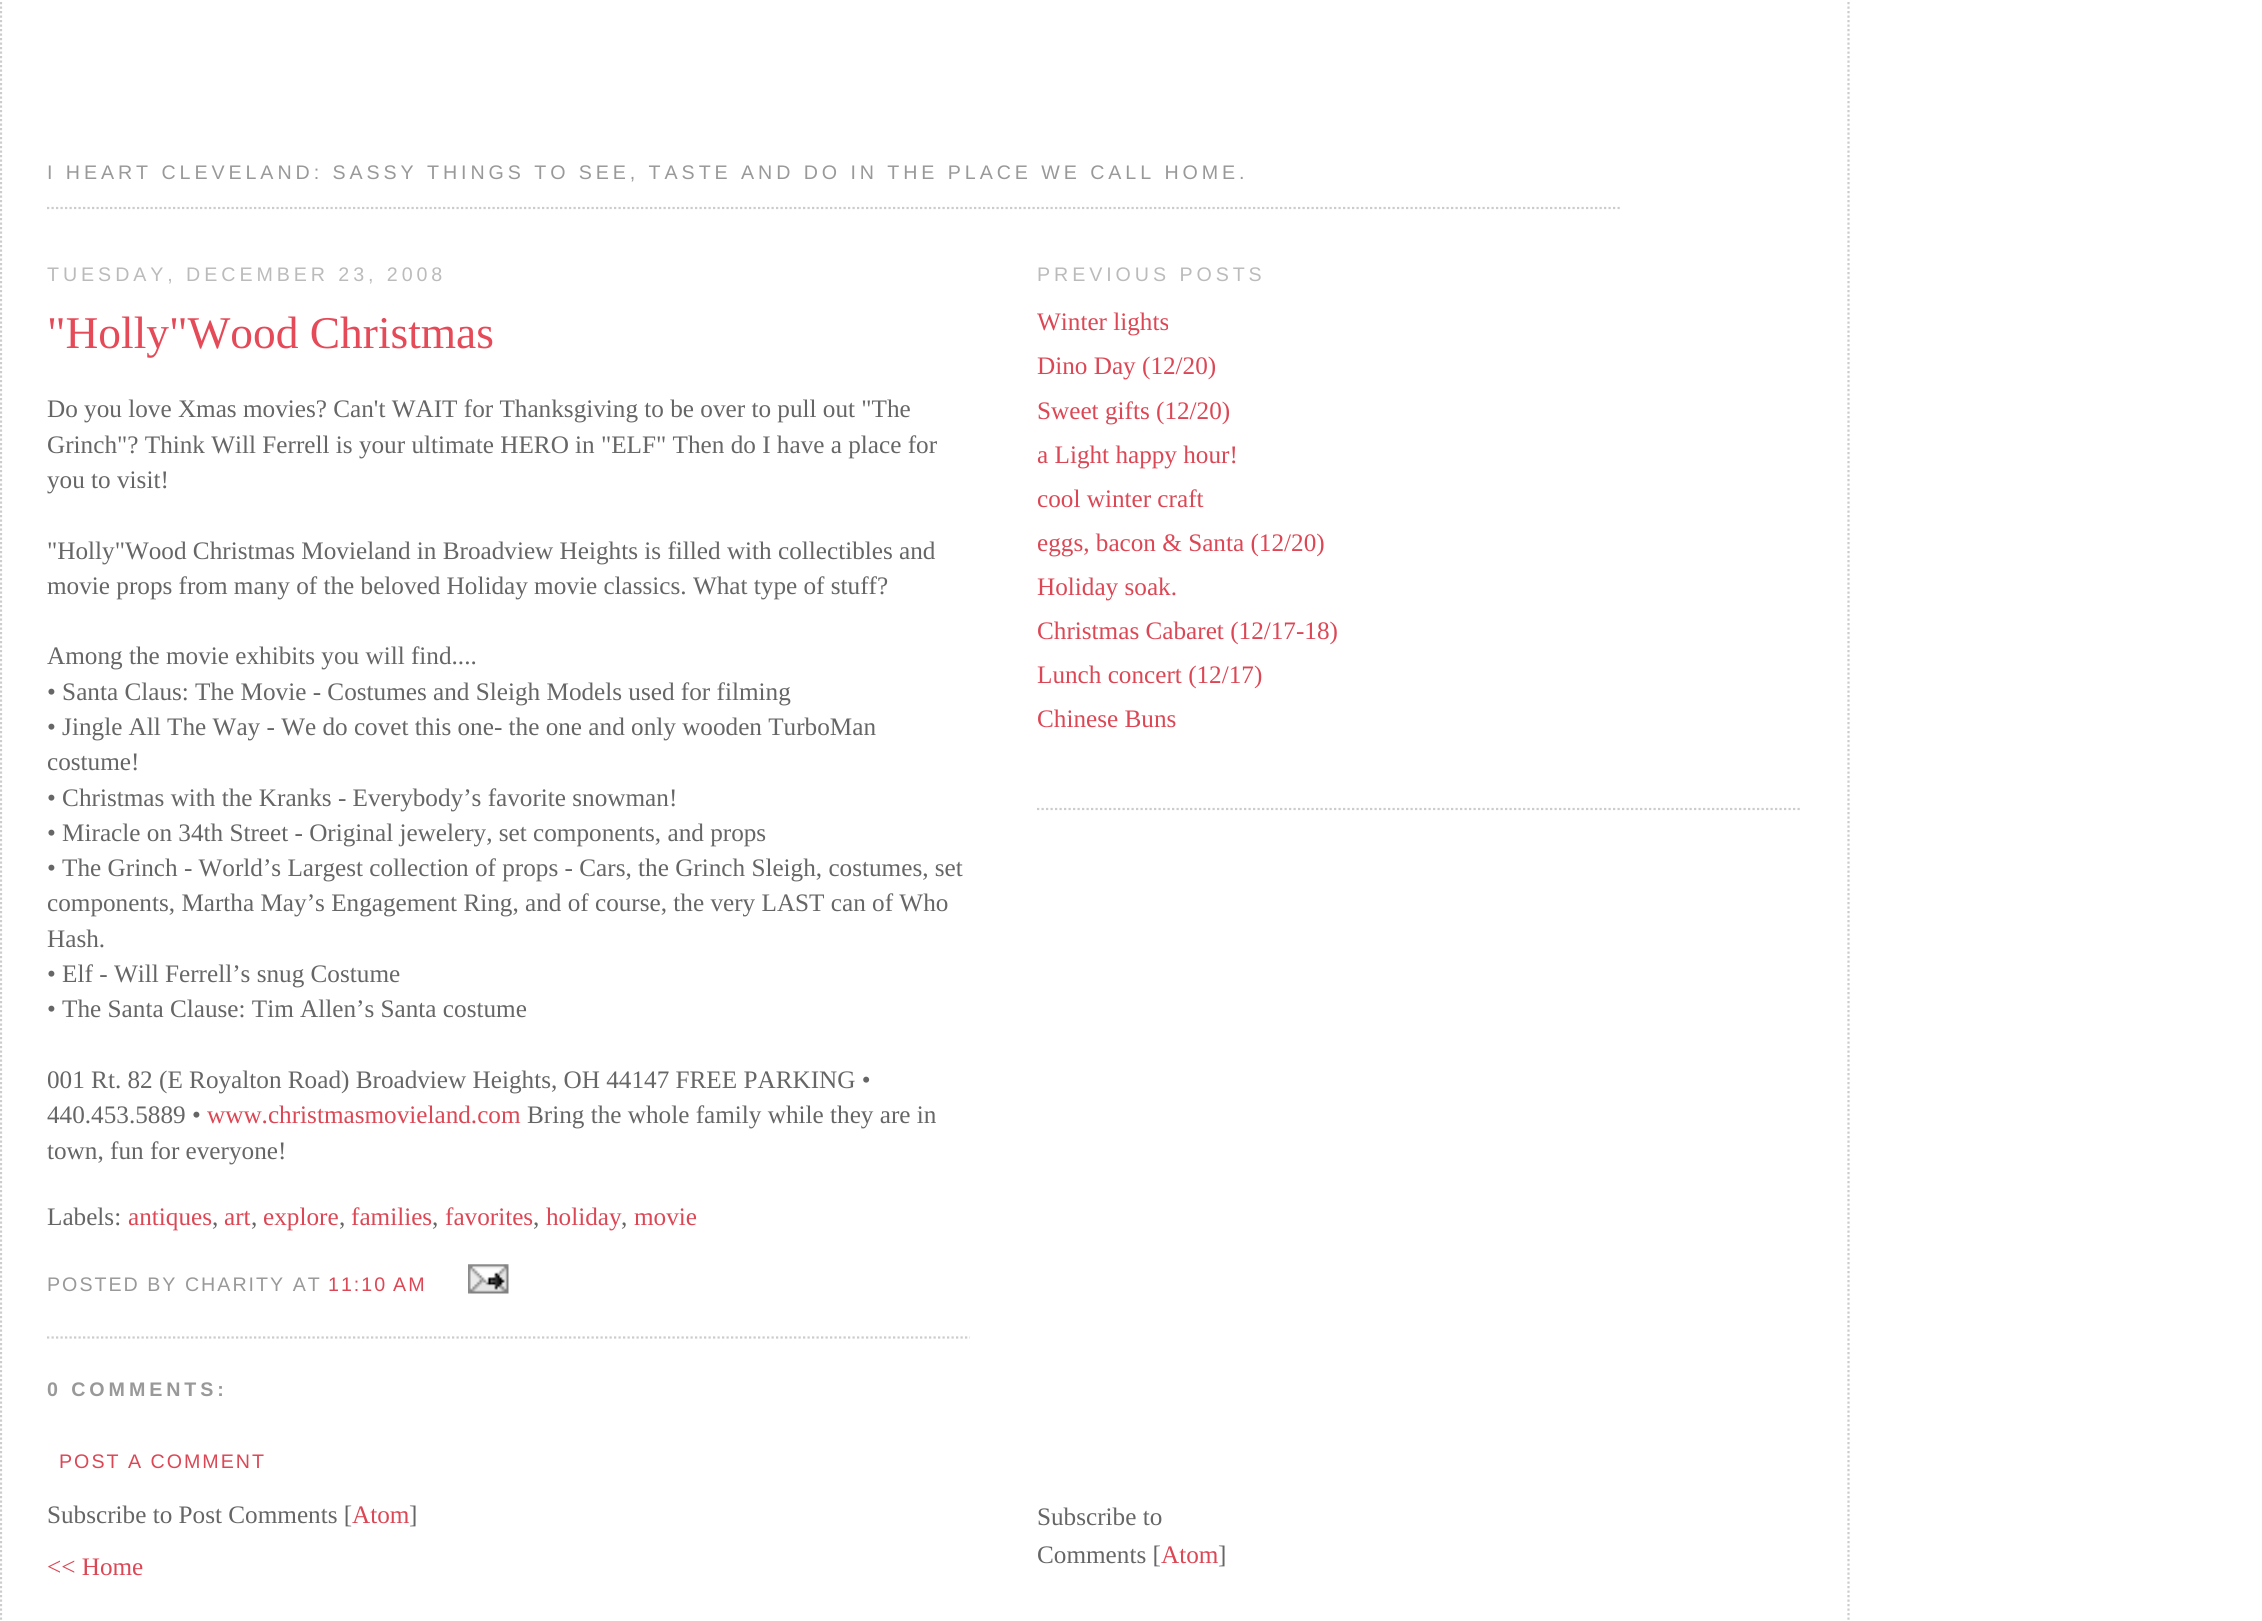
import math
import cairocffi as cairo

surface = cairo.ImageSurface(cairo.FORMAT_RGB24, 2262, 1621)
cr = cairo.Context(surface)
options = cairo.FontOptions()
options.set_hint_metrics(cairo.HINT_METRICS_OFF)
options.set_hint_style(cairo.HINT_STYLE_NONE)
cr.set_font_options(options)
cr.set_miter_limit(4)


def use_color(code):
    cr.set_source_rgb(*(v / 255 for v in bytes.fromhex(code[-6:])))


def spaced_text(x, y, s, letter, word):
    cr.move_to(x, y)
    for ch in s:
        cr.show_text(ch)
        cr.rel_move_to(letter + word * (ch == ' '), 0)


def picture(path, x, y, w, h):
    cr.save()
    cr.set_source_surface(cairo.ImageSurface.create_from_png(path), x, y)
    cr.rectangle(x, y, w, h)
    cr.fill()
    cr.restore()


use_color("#ffffff")
cr.paint()
cr.new_path()
cr.move_to(1848.5, -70)
cr.line_to(1848.5, 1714.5)
use_color("#cccccc")
cr.set_line_width(2.2)
cr.set_dash([2.25, 2.25])
cr.stroke()
cr.new_path()
cr.move_to(1, -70)
cr.line_to(1, 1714.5)
cr.stroke()
cr.new_path()
cr.move_to(47, 208)
cr.line_to(1622, 208)
cr.stroke()
cr.select_font_face("Liberation Sans")
cr.set_font_size(19.65)
use_color("#999999")
spaced_text(47, 179, "I HEART CLEVELAND: SASSY THINGS TO SEE, TASTE AND DO IN THE PLACE WE CALL HOME.", 3.93, 0)
use_color("#bbbbbb")
spaced_text(47, 281, "TUESDAY, DECEMBER 23, 2008", 3.93, 0)
cr.new_path()
cr.move_to(47, 1337.5)
cr.line_to(970, 1337.5)
use_color("#cccccc")
cr.stroke()
cr.select_font_face("Liberation Serif")
cr.set_font_size(45.4)
use_color("#e54a59")
cr.move_to(47, 348)
cr.show_text("\"Holly\"Wood Christmas")
cr.set_font_size(25.2)
use_color("#666666")
cr.move_to(47, 417)
cr.show_text("Do you love Xmas movies? Can't WAIT for Thanksgiving to be over to pull out \"The")
cr.move_to(47, 453)
cr.show_text("Grinch\"? Think Will Ferrell is your ultimate HERO")
cr.move_to(575, 453)
cr.show_text("in \"ELF\" Then do I have a place for")
cr.move_to(47, 488)
cr.show_text("you to visit!")
cr.move_to(47, 559)
cr.show_text("\"Holly\"Wood Christmas Movieland in Broadview Heights is filled with collectibles and")
cr.move_to(47, 594)
cr.show_text("movie props from many of the beloved Holiday movie classics. What type of stuff?")
cr.move_to(47, 664)
cr.show_text("Among the movie exhibits you will find....")
cr.move_to(47, 700)
cr.show_text("• Santa Claus: The Movie - Costumes and Sleigh Models used for filming")
cr.move_to(47, 735)
cr.show_text("• Jingle All The Way - We do covet this one- the one and only wooden TurboMan")
cr.move_to(47, 770)
cr.show_text("costume!")
cr.move_to(47, 806)
cr.show_text("• Christmas with the Kranks - Everybody’s favorite snowman!")
cr.move_to(47, 841)
cr.show_text("• Miracle on 34th Street - Original jewelery, set components, and props")
cr.move_to(47, 876)
cr.show_text("• The Grinch - World’s Largest collection of props - Cars, the Grinch Sleigh, costumes, set")
cr.move_to(47, 911)
cr.show_text("components, Martha May’s Engagement Ring, and of course, the very LAST can of Who")
cr.move_to(47, 947)
cr.show_text("Hash.")
cr.move_to(47, 982)
cr.show_text("• Elf - Will Ferrell’s snug Costume")
cr.move_to(47, 1017)
cr.show_text("• The Santa Clause: Tim Allen’s Santa costume")
cr.move_to(47, 1088)
cr.show_text("001 Rt. 82 (E Royalton Road) Broadview Heights, OH 44147 FREE PARKING •")
cr.move_to(47, 1123)
cr.show_text("440.453.5889 •")
use_color("#dc4755")
cr.move_to(207, 1123)
cr.show_text("www.christmasmovieland.com")
use_color("#666666")
cr.move_to(527, 1123)
cr.show_text("Bring the whole family while they are in")
cr.move_to(47, 1159)
cr.show_text("town, fun for everyone!")
cr.move_to(47, 1225)
cr.show_text("Labels:")
use_color("#dc4755")
cr.move_to(128, 1225)
cr.show_text("antiques")
use_color("#666666")
cr.move_to(212, 1225)
cr.show_text(",")
use_color("#dc4755")
cr.move_to(224, 1225)
cr.show_text("art")
use_color("#666666")
cr.move_to(251, 1225)
cr.show_text(",")
use_color("#dc4755")
cr.move_to(263, 1225)
cr.show_text("explore")
use_color("#666666")
cr.move_to(339, 1225)
cr.show_text(",")
use_color("#dc4755")
cr.move_to(351, 1225)
cr.show_text("families")
use_color("#666666")
cr.move_to(432, 1225)
cr.show_text(",")
use_color("#dc4755")
cr.move_to(445, 1225)
cr.show_text("favorites")
use_color("#666666")
cr.move_to(533, 1225)
cr.show_text(",")
use_color("#dc4755")
cr.move_to(546, 1225)
cr.show_text("holiday")
use_color("#666666")
cr.move_to(621, 1225)
cr.show_text(",")
use_color("#dc4755")
cr.move_to(634, 1225)
cr.show_text("movie")
cr.select_font_face("Liberation Sans")
cr.set_font_size(19.65)
use_color("#999999")
spaced_text(47, 1291, "POSTED BY CHARITY AT", 2, 0)
use_color("#dc4755")
spaced_text(328, 1291, "11:10 AM", 2, 0)
picture("img1.png", 468, 1264, 41, 30)
cr.select_font_face("Liberation Sans", cairo.FONT_SLANT_NORMAL, cairo.FONT_WEIGHT_BOLD)
use_color("#999999")
spaced_text(47, 1396, "0 COMMENTS:", 3.93, 0)
cr.select_font_face("Liberation Sans")
use_color("#dc4755")
spaced_text(59, 1468, "POST A COMMENT", 2, 0)
cr.select_font_face("Liberation Serif")
cr.set_font_size(25.2)
use_color("#666666")
cr.move_to(47, 1523)
cr.show_text("Subscribe to Post Comments [")
use_color("#dc4755")
cr.move_to(352, 1523)
cr.show_text("Atom")
use_color("#666666")
cr.move_to(409, 1523)
cr.show_text("]")
use_color("#dc4755")
cr.move_to(47, 1575)
cr.show_text("<< Home")
cr.select_font_face("Liberation Sans")
cr.set_font_size(19.65)
use_color("#bbbbbb")
spaced_text(1037, 281, "PREVIOUS POSTS", 3.93, 0)
cr.new_path()
cr.move_to(1037, 809)
cr.line_to(1802, 809)
use_color("#cccccc")
cr.stroke()
cr.select_font_face("Liberation Serif")
cr.set_font_size(25.2)
use_color("#dc4755")
cr.move_to(1037, 330)
cr.show_text("Winter lights")
cr.move_to(1037, 374)
cr.show_text("Dino Day (12/20)")
cr.move_to(1037, 419)
cr.show_text("Sweet gifts (12/20)")
cr.move_to(1037, 463)
cr.show_text("a Light happy hour!")
cr.move_to(1037, 507)
cr.show_text("cool winter craft")
cr.move_to(1037, 551)
cr.show_text("eggs, bacon & Santa (12/20)")
cr.move_to(1037, 595)
cr.show_text("Holiday soak.")
cr.move_to(1037, 639)
cr.show_text("Christmas Cabaret (12/17-18)")
cr.move_to(1037, 683)
cr.show_text("Lunch concert (12/17)")
cr.move_to(1037, 727)
cr.show_text("Chinese Buns")
use_color("#666666")
cr.move_to(1037, 1525)
cr.show_text("Subscribe to")
cr.move_to(1037, 1563)
cr.show_text("Comments [")
use_color("#dc4755")
cr.move_to(1161, 1563)
cr.show_text("Atom")
use_color("#666666")
cr.move_to(1218, 1563)
cr.show_text("]")
surface.write_to_png("result.png")
